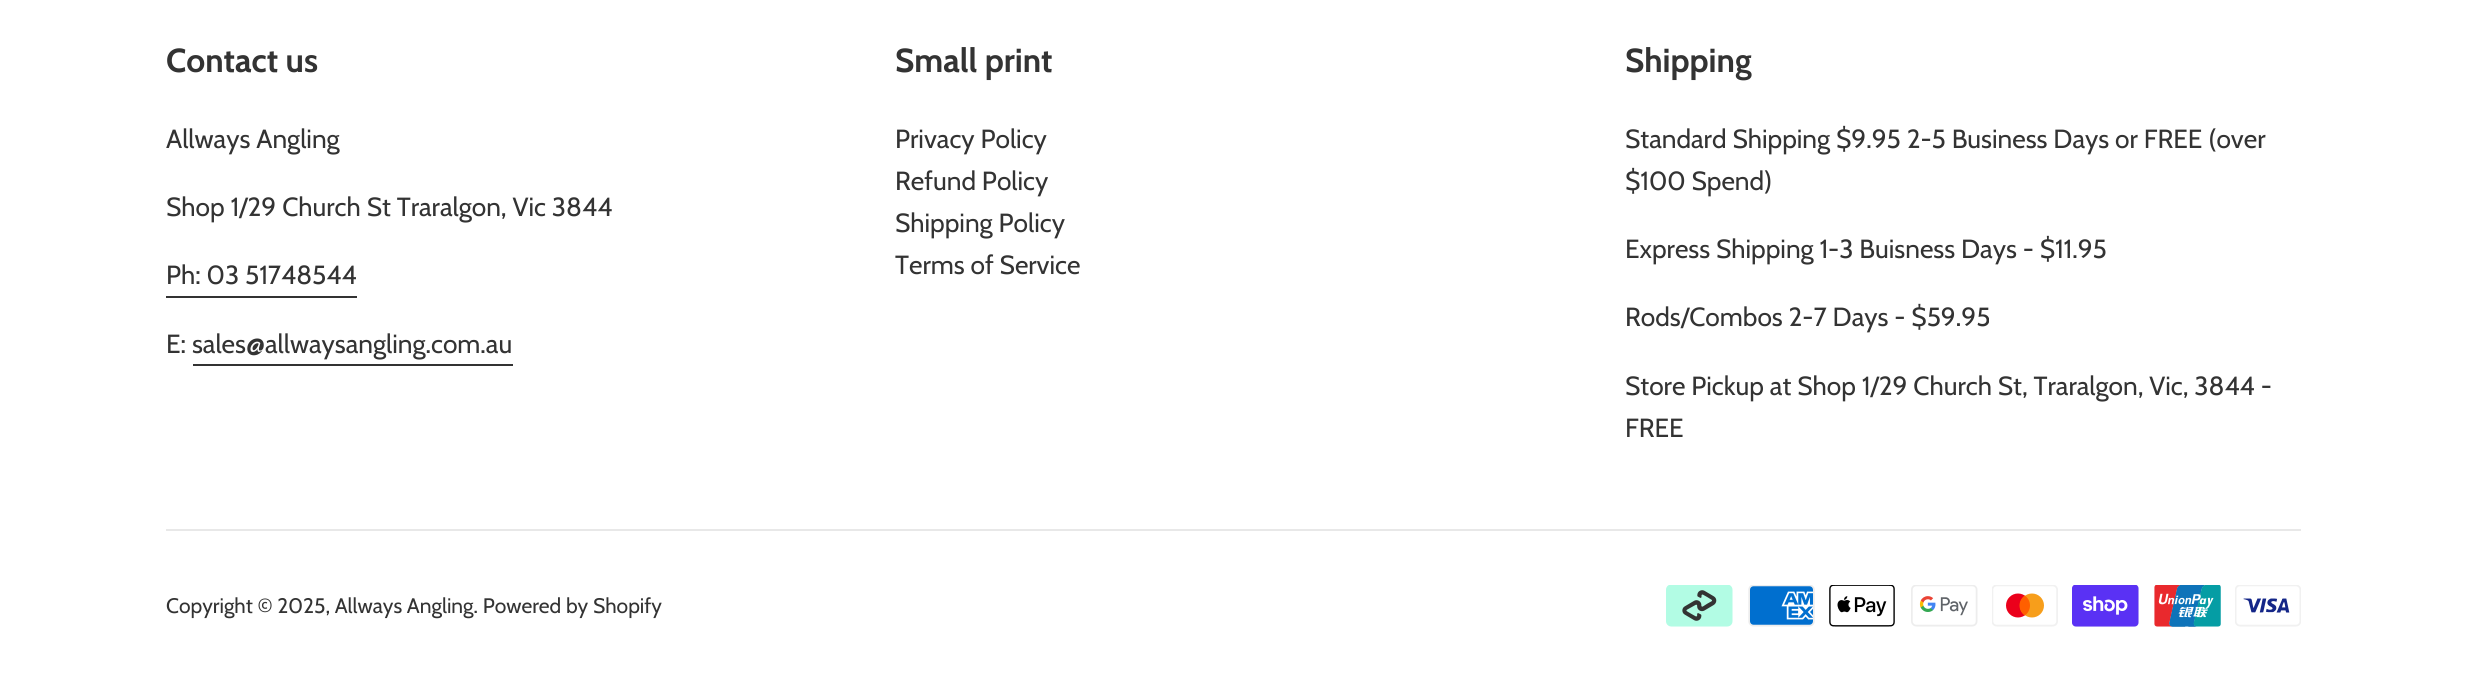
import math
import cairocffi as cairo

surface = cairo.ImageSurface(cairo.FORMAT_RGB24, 2467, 678)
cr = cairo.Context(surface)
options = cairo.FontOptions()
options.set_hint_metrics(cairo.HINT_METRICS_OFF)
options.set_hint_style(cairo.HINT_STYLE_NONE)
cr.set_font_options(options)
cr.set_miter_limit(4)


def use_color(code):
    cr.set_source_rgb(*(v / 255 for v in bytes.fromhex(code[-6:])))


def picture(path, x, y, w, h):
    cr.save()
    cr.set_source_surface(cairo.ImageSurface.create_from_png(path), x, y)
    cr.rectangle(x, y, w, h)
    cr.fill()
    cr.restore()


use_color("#ffffff")
cr.paint()
cr.select_font_face("Cabin", cairo.FONT_SLANT_NORMAL, cairo.FONT_WEIGHT_BOLD)
cr.set_font_size(33.25)
use_color("#333333")
cr.move_to(166, 72)
cr.show_text("Contact us")
cr.select_font_face("Cabin")
cr.set_font_size(26.25)
cr.move_to(166, 148)
cr.show_text("Allways Angling")
cr.move_to(166, 216)
cr.show_text("Shop 1/29 Church St Traralgon, Vic 3844")
cr.move_to(166, 284)
cr.show_text("Ph: 03 51748544")
cr.rectangle(166, 296, 191, 2)
cr.fill()
cr.move_to(166, 353)
cr.show_text("E: sales@allwaysangling.com.au")
cr.rectangle(193, 364, 320, 2)
cr.fill()
cr.select_font_face("Cabin", cairo.FONT_SLANT_NORMAL, cairo.FONT_WEIGHT_BOLD)
cr.set_font_size(33.25)
cr.move_to(895, 72)
cr.show_text("Small print")
cr.select_font_face("Cabin")
cr.set_font_size(26.25)
cr.move_to(895, 148)
cr.show_text("Privacy Policy")
cr.move_to(895, 190)
cr.show_text("Refund Policy")
cr.move_to(895, 232)
cr.show_text("Shipping Policy")
cr.move_to(895, 274)
cr.show_text("Terms of Service")
cr.select_font_face("Cabin", cairo.FONT_SLANT_NORMAL, cairo.FONT_WEIGHT_BOLD)
cr.set_font_size(33.25)
cr.move_to(1625, 72)
cr.show_text("Shipping")
cr.select_font_face("Cabin")
cr.set_font_size(26.25)
cr.move_to(1625, 148)
cr.show_text("Standard Shipping $9.95 2-5 Business Days or FREE (over")
cr.move_to(1625, 190)
cr.show_text("$100 Spend)")
cr.move_to(1625, 258)
cr.show_text("Express Shipping 1-3 Buisness Days - $11.95")
cr.move_to(1625, 326)
cr.show_text("Rods/Combos 2-7 Days - $59.95")
cr.move_to(1625, 395)
cr.show_text("Store Pickup at Shop 1/29 Church St, Traralgon, Vic, 3844 -")
cr.move_to(1625, 437)
cr.show_text("FREE")
use_color("#e8e8e8")
cr.rectangle(166, 529, 2135, 2)
cr.fill()
cr.set_font_size(21)
use_color("#333333")
cr.move_to(166, 613)
cr.show_text("Copyright © 2025, Allways Angling. Powered by Shopify")
picture("img1.png", 1666, 585, 67, 42)
picture("img2.png", 1748, 585, 67, 42)
picture("img3.png", 1829, 585, 66, 42)
picture("img4.png", 1911, 585, 67, 42)
picture("img5.png", 1992, 585, 66, 42)
picture("img6.png", 2072, 585, 67, 42)
picture("img7.png", 2154, 585, 67, 42)
picture("img8.png", 2235, 585, 66, 42)
surface.write_to_png("result.png")
